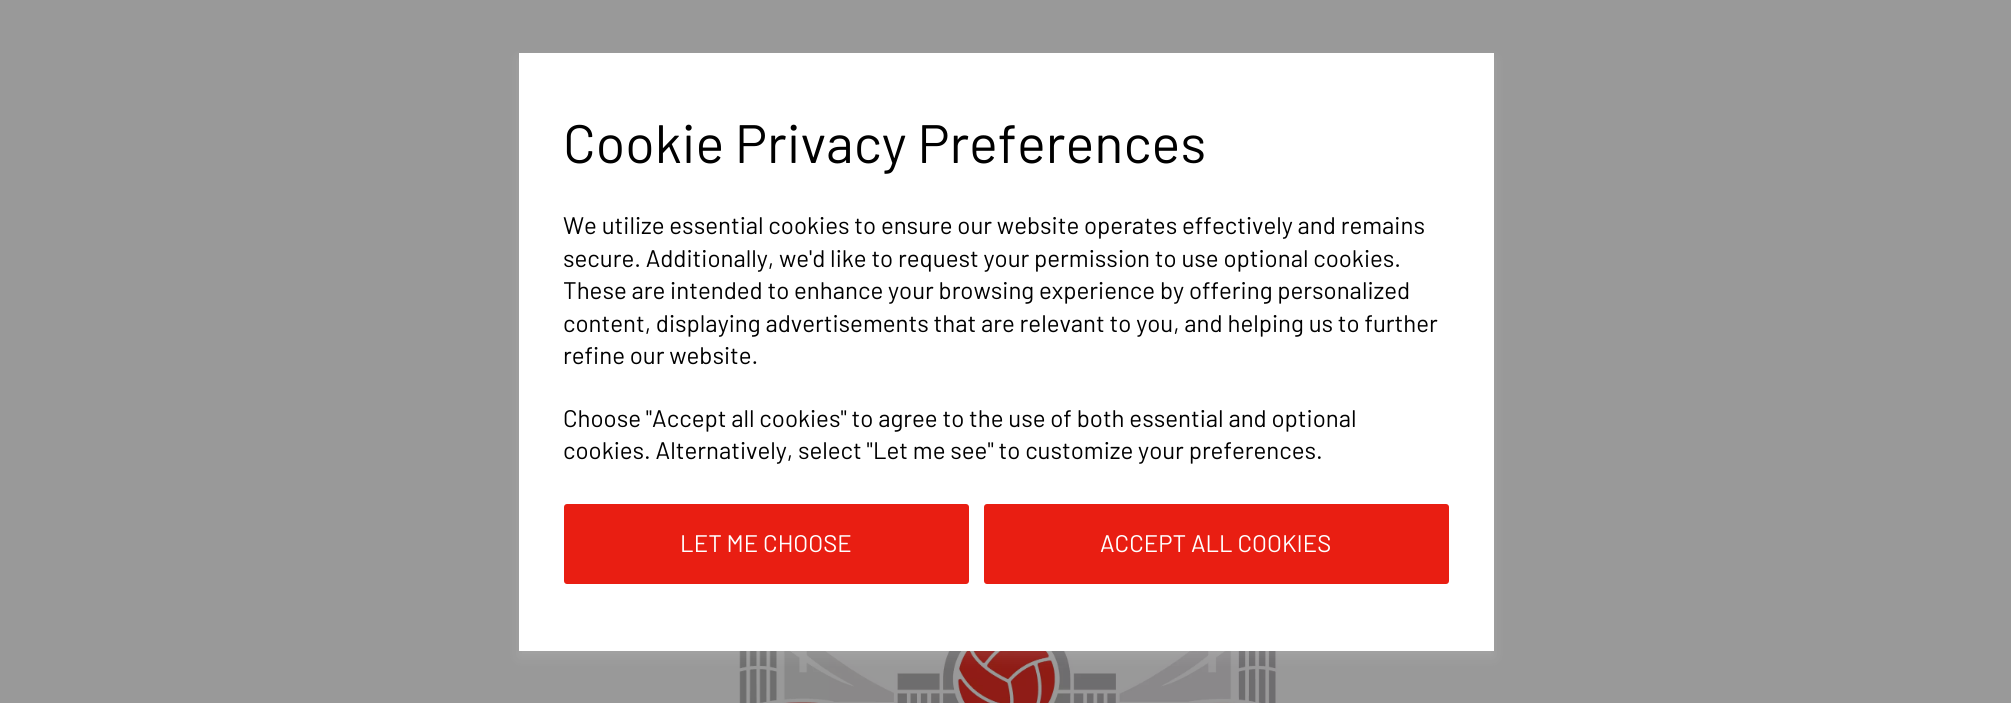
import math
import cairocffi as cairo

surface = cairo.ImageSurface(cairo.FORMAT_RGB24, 2011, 703)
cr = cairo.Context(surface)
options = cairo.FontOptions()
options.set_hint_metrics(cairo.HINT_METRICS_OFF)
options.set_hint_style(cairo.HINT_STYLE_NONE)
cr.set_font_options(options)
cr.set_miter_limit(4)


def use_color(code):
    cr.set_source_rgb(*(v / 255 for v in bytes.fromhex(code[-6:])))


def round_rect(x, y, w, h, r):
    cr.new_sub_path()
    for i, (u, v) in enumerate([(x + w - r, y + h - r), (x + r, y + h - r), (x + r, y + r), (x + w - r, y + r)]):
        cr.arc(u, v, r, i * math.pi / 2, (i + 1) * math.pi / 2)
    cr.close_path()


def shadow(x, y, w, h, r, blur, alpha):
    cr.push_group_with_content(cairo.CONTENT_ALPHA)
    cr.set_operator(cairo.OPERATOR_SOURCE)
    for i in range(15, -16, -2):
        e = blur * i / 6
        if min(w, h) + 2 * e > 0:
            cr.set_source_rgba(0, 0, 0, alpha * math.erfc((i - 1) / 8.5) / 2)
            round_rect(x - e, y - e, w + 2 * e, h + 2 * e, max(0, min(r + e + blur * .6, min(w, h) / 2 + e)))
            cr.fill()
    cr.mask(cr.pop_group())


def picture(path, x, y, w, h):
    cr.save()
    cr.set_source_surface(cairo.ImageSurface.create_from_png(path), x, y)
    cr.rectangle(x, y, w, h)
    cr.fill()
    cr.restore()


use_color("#999999")
cr.paint()
picture("img1.png", 736, 651, 543, 52)
use_color("#ffffff")
shadow(519, 59, 975, 598, 0, 6, 0.1)
use_color("#ffffff")
cr.rectangle(519, 53, 975, 598)
cr.fill()
cr.select_font_face("Barlow")
cr.set_font_size(54)
use_color("#000000")
cr.move_to(563, 163)
cr.show_text("Cookie Privacy Preferences")
cr.set_font_size(24)
cr.move_to(563, 234)
cr.show_text("We utilize essential cookies to ensure our website operates effectively and remains")
cr.move_to(563, 267)
cr.show_text("secure. Additionally, we'd like to request your permission to use optional cookies.")
cr.move_to(563, 299)
cr.show_text("These are intended to enhance your browsing experience by offering personalized")
cr.move_to(563, 332)
cr.show_text("content, displaying advertisements that are relevant to you, and helping us to further")
cr.move_to(563, 364)
cr.show_text("refine our website.")
cr.move_to(563, 427)
cr.show_text("Choose \"Accept all cookies\" to agree to the use of both essential and optional")
cr.move_to(563, 459)
cr.show_text("cookies. Alternatively, select \"Let me see\" to customize your preferences.")
use_color("#e91e12")
round_rect(564, 504, 405, 80, 3)
cr.fill()
use_color("#ffffff")
cr.move_to(680, 552)
cr.show_text("LET ME CHOOSE")
use_color("#e91e12")
round_rect(984, 504, 465, 80, 3)
cr.fill()
use_color("#ffffff")
cr.move_to(1100, 552)
cr.show_text("ACCEPT ALL COOKIES")
surface.write_to_png("result.png")
